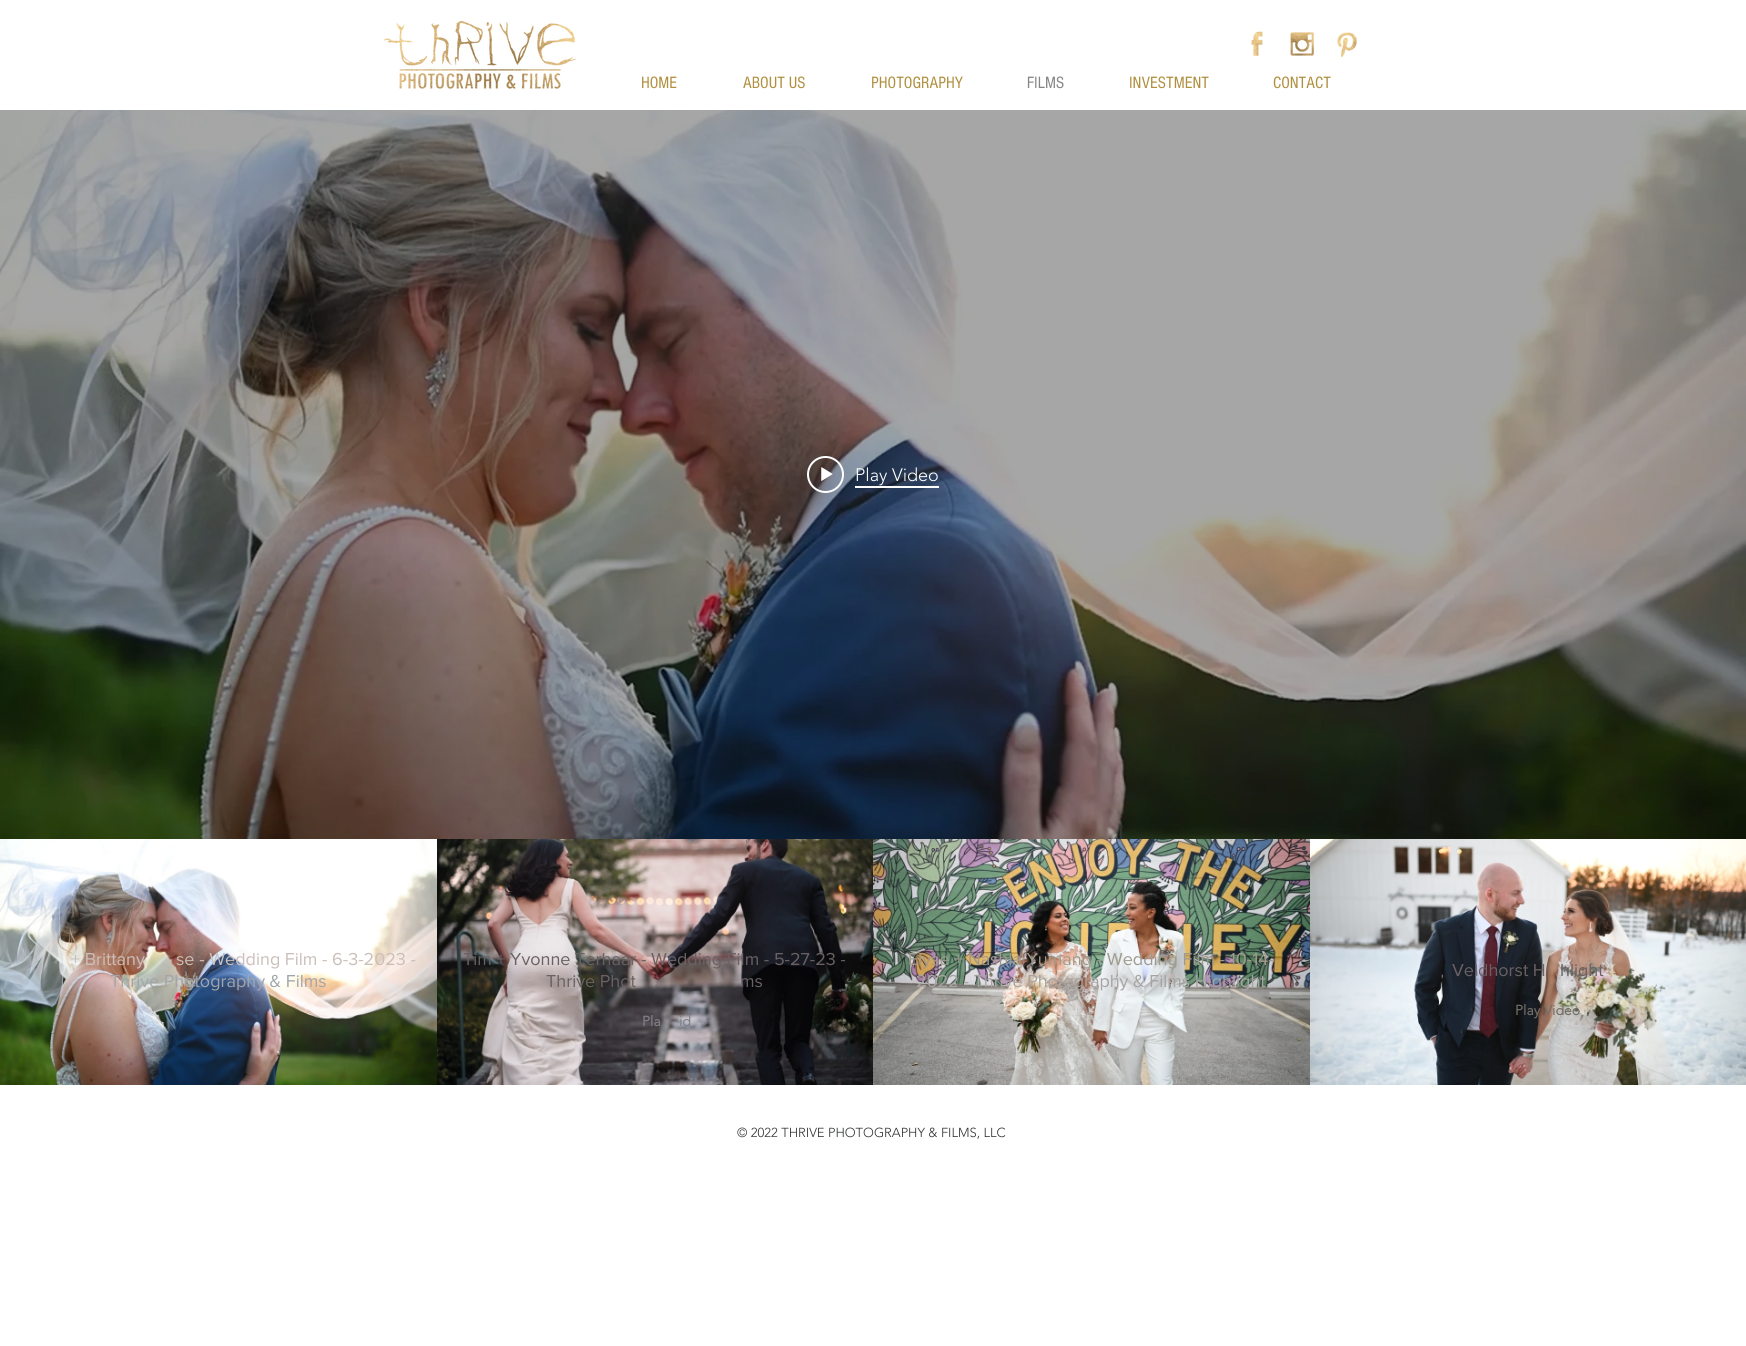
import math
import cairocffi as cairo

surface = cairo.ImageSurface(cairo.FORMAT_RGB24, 1746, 1346)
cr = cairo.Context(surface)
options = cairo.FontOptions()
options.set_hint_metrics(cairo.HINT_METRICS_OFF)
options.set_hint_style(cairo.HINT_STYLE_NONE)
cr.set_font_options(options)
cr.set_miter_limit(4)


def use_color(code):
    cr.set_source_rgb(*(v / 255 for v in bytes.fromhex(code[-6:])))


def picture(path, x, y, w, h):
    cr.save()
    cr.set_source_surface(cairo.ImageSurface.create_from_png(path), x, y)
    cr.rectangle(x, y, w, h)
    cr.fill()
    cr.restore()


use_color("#ffffff")
cr.paint()
picture("img1.png", 383, 20, 193, 69)
picture("img2.png", 1251, 31, 12, 25)
picture("img3.png", 1290, 32, 24, 24)
picture("img4.png", 1337, 32, 20, 26)
cr.select_font_face("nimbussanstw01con")
cr.set_font_size(17)
use_color("#b08f3e")
cr.move_to(641, 88)
cr.show_text("HOME")
cr.move_to(743, 88)
cr.show_text("ABOUT US")
cr.move_to(871, 88)
cr.show_text("PHOTOGRAPHY")
use_color("#858585")
cr.move_to(1027, 88)
cr.show_text("FILMS")
use_color("#b08f3e")
cr.move_to(1129, 88)
cr.show_text("INVESTMENT")
cr.move_to(1273, 88)
cr.show_text("CONTACT")
picture("img5.png", 0, 110, 1746, 729)
picture("img6.png", 644, 441, 780, 309)
cr.arc(825.5, 474.5, 17.5, 0, 2 * math.pi)
use_color("#ffffff")
cr.stroke()
picture("img7.png", 821, 467, 12, 14)
cr.rectangle(855, 486, 84, 2)
cr.fill()
cr.select_font_face("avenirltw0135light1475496 Light")
cr.set_font_size(18)
cr.move_to(855, 481)
cr.show_text("Play Video")
picture("img8.png", 0, 839, 437, 24)
picture("img9.png", 0, 863, 437, 222)
cr.select_font_face("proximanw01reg")
use_color("#cabfba")
cr.move_to(71, 965)
cr.show_text("+ Brittany")
cr.move_to(176, 965)
cr.show_text("se - Wedding Film - 6-3-2023 -")
use_color("#a1a5ab")
cr.move_to(110, 987)
cr.show_text("Thrive Photography & Films")
picture("img10.png", 437, 839, 436, 246)
use_color("#696163")
cr.move_to(463, 965)
cr.show_text("Tim + Yvonne Terhaar - Wedding Film - 5-27-23 -")
cr.move_to(546, 987)
cr.show_text("Thrive Phot")
cr.move_to(740, 987)
cr.show_text("ms")
cr.select_font_face("avenirltw0135light1475496", cairo.FONT_SLANT_NORMAL, cairo.FONT_WEIGHT_BOLD)
cr.set_font_size(14)
use_color("#817f86")
cr.move_to(642, 1026)
cr.show_text("Pla")
cr.move_to(679, 1026)
cr.show_text("id")
picture("img11.png", 873, 839, 437, 246)
cr.select_font_face("proximanw01reg")
cr.set_font_size(18)
use_color("#a09a8b")
cr.move_to(908, 965)
cr.show_text("Elyse + Nashla Yumang - Wedding Film - 10-14-")
use_color("#a6a3a2")
cr.move_to(916, 987)
cr.show_text("2022 - Thrive Photography & Films Highlight")
cr.select_font_face("avenirltw0135light1475496", cairo.FONT_SLANT_NORMAL, cairo.FONT_WEIGHT_BOLD)
cr.set_font_size(14)
use_color("#d7d8d7")
cr.move_to(1086, 1026)
cr.show_text("l")
picture("img12.png", 1310, 839, 436, 246)
cr.select_font_face("proximanw01reg")
cr.set_font_size(18)
use_color("#696163")
cr.move_to(1452, 976)
cr.show_text("Veldhorst H")
cr.move_to(1560, 976)
cr.show_text("hlight")
cr.select_font_face("avenirltw0135light1475496", cairo.FONT_SLANT_NORMAL, cairo.FONT_WEIGHT_BOLD)
cr.set_font_size(14)
use_color("#736d68")
cr.move_to(1515, 1015)
cr.show_text("Play Video")
cr.select_font_face("avenirltw0135light1475496 Light")
cr.set_font_size(13)
use_color("#303131")
cr.move_to(737, 1137)
cr.show_text("© 2022 THRIVE PHOTOGRAPHY & FILMS, LLC")
surface.write_to_png("result.png")
